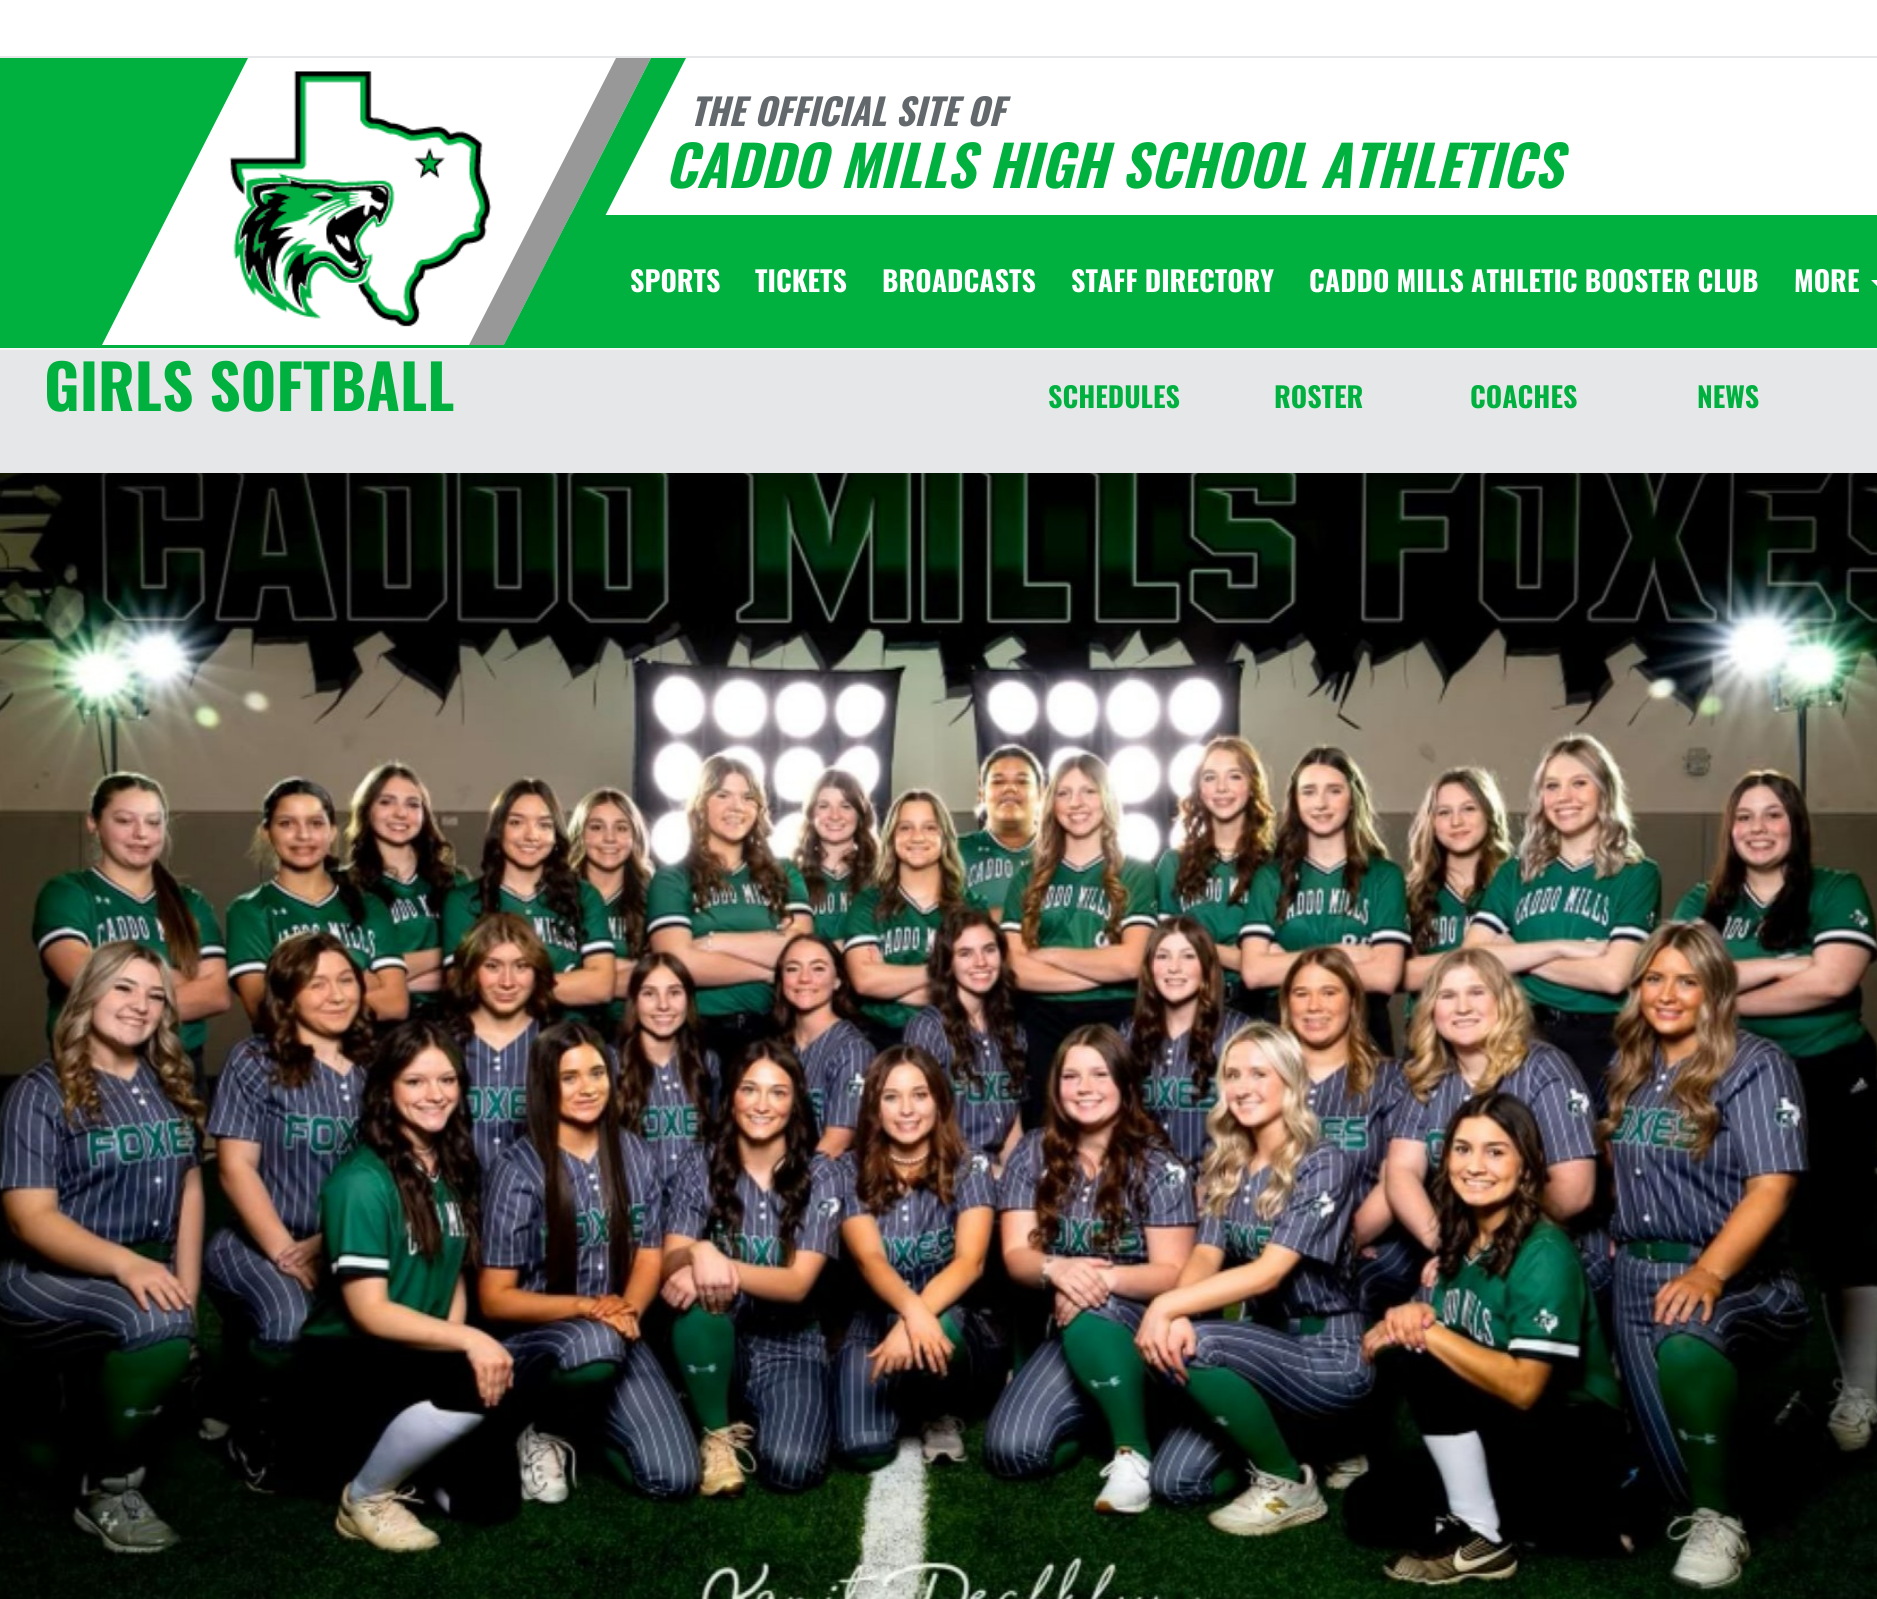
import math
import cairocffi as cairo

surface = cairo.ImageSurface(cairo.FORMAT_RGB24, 1877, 1599)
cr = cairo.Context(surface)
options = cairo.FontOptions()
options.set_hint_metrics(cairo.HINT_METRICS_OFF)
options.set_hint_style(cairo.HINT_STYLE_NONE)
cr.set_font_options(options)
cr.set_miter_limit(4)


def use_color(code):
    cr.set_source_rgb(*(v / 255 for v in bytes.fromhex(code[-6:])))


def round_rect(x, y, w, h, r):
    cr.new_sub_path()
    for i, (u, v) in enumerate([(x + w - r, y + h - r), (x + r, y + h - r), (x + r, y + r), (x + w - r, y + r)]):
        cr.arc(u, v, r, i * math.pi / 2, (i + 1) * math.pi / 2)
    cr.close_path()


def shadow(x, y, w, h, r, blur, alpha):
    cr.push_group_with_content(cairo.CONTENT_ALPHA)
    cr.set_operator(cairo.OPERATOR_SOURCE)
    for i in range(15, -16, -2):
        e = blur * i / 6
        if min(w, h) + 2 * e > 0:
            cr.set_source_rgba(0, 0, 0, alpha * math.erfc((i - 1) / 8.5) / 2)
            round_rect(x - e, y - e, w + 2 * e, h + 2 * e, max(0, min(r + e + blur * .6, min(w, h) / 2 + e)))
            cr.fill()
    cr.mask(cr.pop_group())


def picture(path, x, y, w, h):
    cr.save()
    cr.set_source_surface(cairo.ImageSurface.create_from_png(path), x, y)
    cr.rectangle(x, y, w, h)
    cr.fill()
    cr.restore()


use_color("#ffffff")
cr.paint()
use_color("#e6e7e8")
cr.rectangle(0, 56, 1877, 2)
cr.fill()
use_color("#00b140")
cr.rectangle(0, 58, 248, 157)
cr.fill()
cr.select_font_face("Oswald", cairo.FONT_SLANT_ITALIC, cairo.FONT_WEIGHT_BOLD)
cr.set_font_size(36.5)
use_color("#63686c")
cr.move_to(690, 126)
cr.show_text("THE OFFICIAL SITE OF")
cr.set_font_size(56)
use_color("#00b140")
cr.move_to(665, 188)
cr.show_text("CADDO MILLS HIGH SCHOOL ATHLETICS")
cr.rectangle(0, 215, 1877, 133)
cr.fill()
use_color("#000000")
shadow(-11, 354, 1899, 122, 0, 3.5, 0.5)
use_color("#ffffff")
cr.new_path()
cr.move_to(248, 58)
cr.line_to(651, 58)
cr.line_to(504, 345)
cr.line_to(102, 345)
cr.close_path()
cr.fill()
cr.select_font_face("Oswald", cairo.FONT_SLANT_NORMAL, cairo.FONT_WEIGHT_BOLD)
cr.set_font_size(28)
cr.move_to(630, 292)
cr.show_text("SPORTS")
use_color("#989898")
cr.new_path()
cr.move_to(616, 58)
cr.line_to(651, 58)
cr.line_to(504, 345)
cr.line_to(469, 345)
cr.close_path()
cr.fill()
picture("img1.png", 229, 71, 263, 256)
use_color("#00b140")
cr.new_path()
cr.move_to(651, 58)
cr.line_to(686, 58)
cr.line_to(539, 345)
cr.line_to(504, 345)
cr.close_path()
cr.fill()
use_color("#ffffff")
cr.move_to(755, 292)
cr.show_text("TICKETS")
cr.move_to(882, 292)
cr.show_text("BROADCASTS")
cr.move_to(1071, 292)
cr.show_text("STAFF DIRECTORY")
cr.move_to(1309, 292)
cr.show_text("CADDO MILLS ATHLETIC BOOSTER CLUB")
cr.move_to(1794, 292)
cr.show_text("MORE")
cr.new_path()
cr.move_to(1871, 280)
cr.line_to(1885, 280)
cr.line_to(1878, 287)
cr.close_path()
cr.fill()
use_color("#e6e7e8")
cr.rectangle(0, 350, 1877, 123)
cr.fill()
cr.set_font_size(61.25)
use_color("#00b140")
cr.move_to(44, 411)
cr.show_text("GIRLS SOFTBALL")
cr.set_font_size(28)
cr.move_to(1048, 408)
cr.show_text("SCHEDULES")
cr.move_to(1274, 408)
cr.show_text("ROSTER")
cr.move_to(1470, 408)
cr.show_text("COACHES")
cr.move_to(1697, 408)
cr.show_text("NEWS")
picture("img2.png", 0, 473, 1877, 1126)
surface.write_to_png("result.png")
